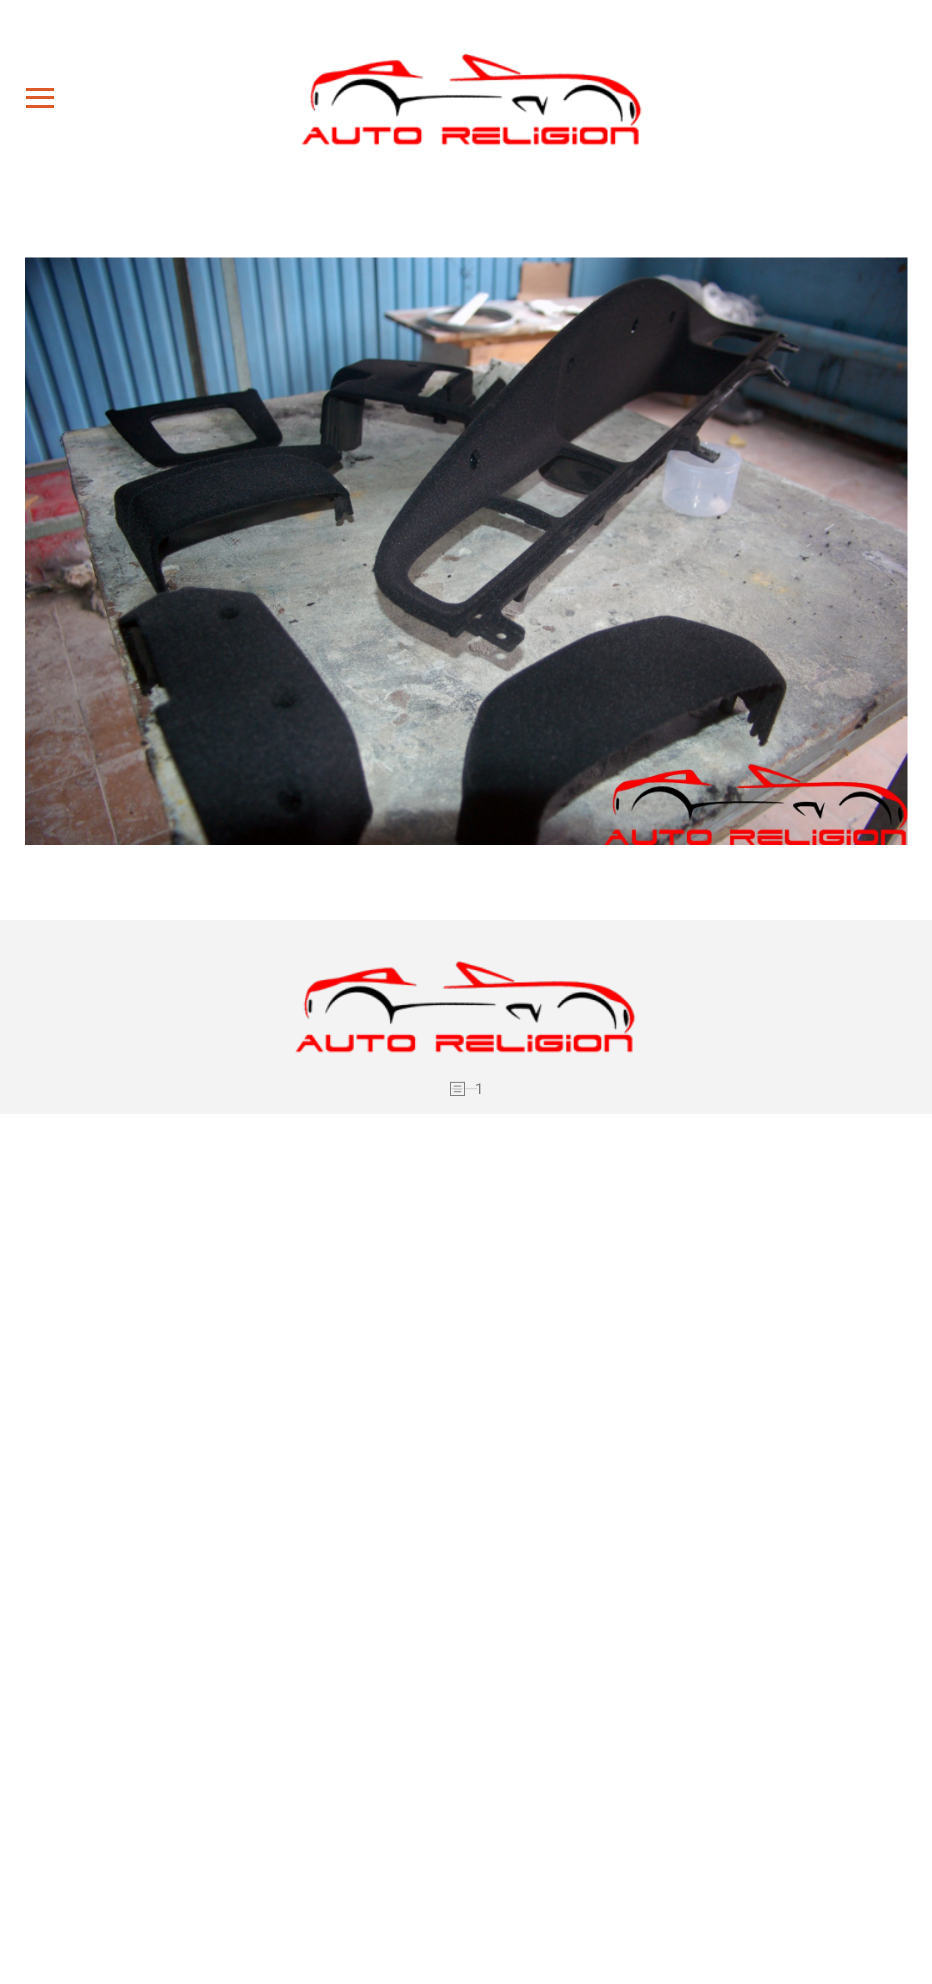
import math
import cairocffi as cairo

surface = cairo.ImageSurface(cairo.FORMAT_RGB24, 932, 1984)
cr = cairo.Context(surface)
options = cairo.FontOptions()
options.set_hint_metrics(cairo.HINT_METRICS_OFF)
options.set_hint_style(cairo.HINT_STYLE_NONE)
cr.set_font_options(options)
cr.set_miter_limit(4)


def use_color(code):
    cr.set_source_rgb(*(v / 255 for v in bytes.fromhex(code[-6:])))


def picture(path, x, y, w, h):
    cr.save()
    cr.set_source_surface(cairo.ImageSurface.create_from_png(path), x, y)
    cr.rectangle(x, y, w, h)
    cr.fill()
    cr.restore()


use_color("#ffffff")
cr.paint()
use_color("#df5828")
cr.rectangle(26, 88, 28, 3)
cr.fill()
cr.rectangle(26, 96, 28, 3)
cr.fill()
cr.rectangle(26, 105, 28, 3)
cr.fill()
picture("img1.png", 301, 53, 341, 93)
picture("img2.png", 25, 257, 883, 588)
use_color("#f3f3f3")
cr.rectangle(0, 920, 932, 194)
cr.fill()
picture("img3.png", 295, 961, 341, 92)
picture("img4.png", 450, 1081, 15, 15)
cr.select_font_face("Roboto")
cr.set_font_size(15)
use_color("#777777")
cr.move_to(475, 1094)
cr.show_text("1")
cr.set_font_size(18)
use_color("#d7d7d7")
cr.move_to(450, 1095)
cr.show_text("——")
surface.write_to_png("result.png")
